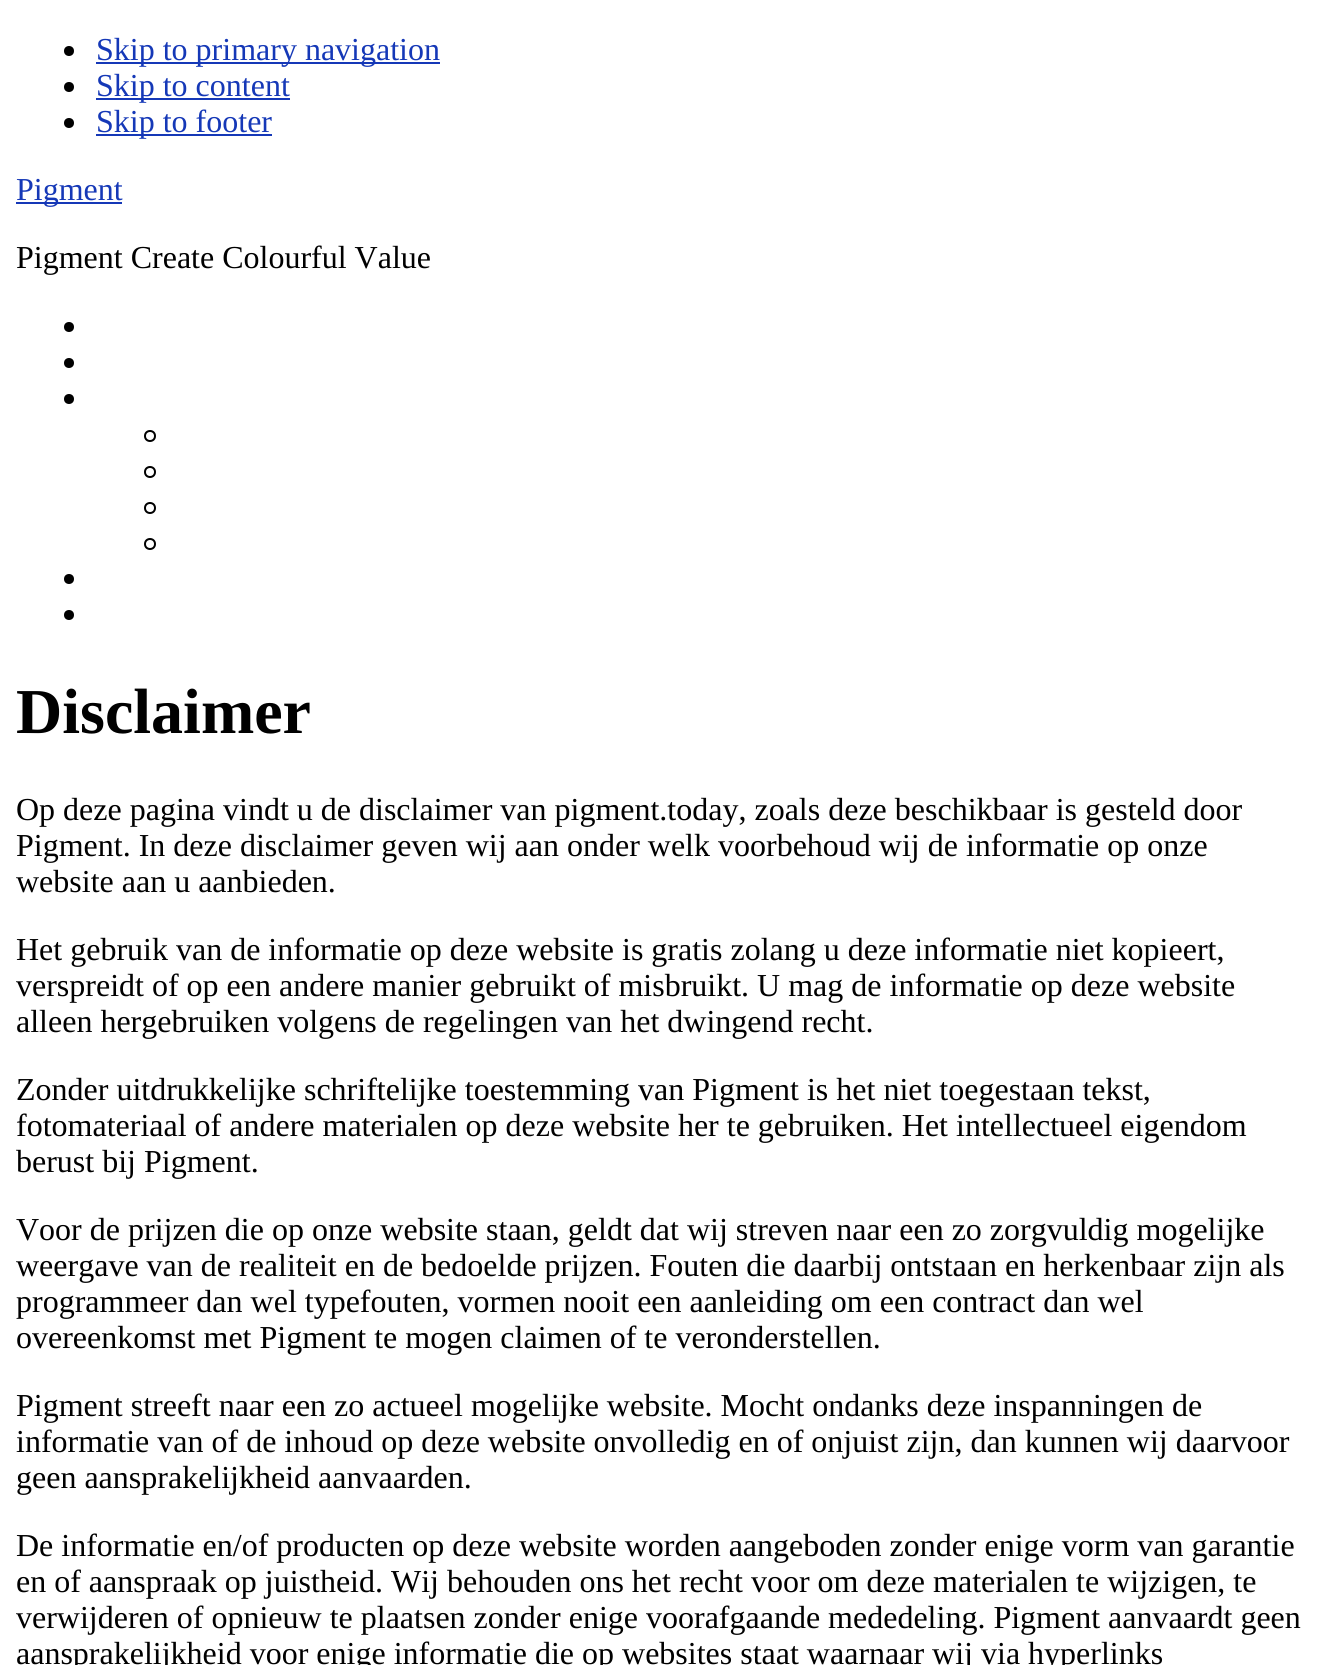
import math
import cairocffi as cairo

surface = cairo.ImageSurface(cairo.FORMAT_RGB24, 1320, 1665)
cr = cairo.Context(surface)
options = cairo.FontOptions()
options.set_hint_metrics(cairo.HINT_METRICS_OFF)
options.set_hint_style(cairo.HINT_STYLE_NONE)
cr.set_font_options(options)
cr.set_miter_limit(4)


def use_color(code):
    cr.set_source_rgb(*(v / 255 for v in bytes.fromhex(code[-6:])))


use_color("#ffffff")
cr.paint()
use_color("#000000")
cr.arc(69, 51, 5, 0, 2 * math.pi)
cr.fill()
use_color("#1538b7")
cr.rectangle(96, 62, 344, 2)
cr.fill()
cr.select_font_face("Liberation Serif")
cr.set_font_size(32)
cr.move_to(96, 60)
cr.show_text("Skip to primary navigation")
use_color("#000000")
cr.new_path()
cr.arc(69, 87, 5, 0, 2 * math.pi)
cr.fill()
use_color("#1538b7")
cr.rectangle(96, 98, 194, 2)
cr.fill()
cr.move_to(96, 96)
cr.show_text("Skip to content")
use_color("#000000")
cr.new_path()
cr.arc(69, 123, 5, 0, 2 * math.pi)
cr.fill()
use_color("#1538b7")
cr.rectangle(96, 134, 176, 2)
cr.fill()
cr.move_to(96, 132)
cr.show_text("Skip to footer")
cr.rectangle(16, 202, 106, 2)
cr.fill()
cr.move_to(16, 200)
cr.show_text("Pigment")
use_color("#000000")
cr.move_to(16, 268)
cr.show_text("Pigment Create Colourful Value")
cr.new_path()
cr.arc(69, 327, 5, 0, 2 * math.pi)
cr.fill()
cr.arc(69, 363, 5, 0, 2 * math.pi)
cr.fill()
cr.arc(69, 399, 5, 0, 2 * math.pi)
cr.fill()
cr.arc(150, 436, 5, 0, 2 * math.pi)
cr.stroke()
cr.arc(150, 472, 5, 0, 2 * math.pi)
cr.stroke()
cr.arc(150, 508, 5, 0, 2 * math.pi)
cr.stroke()
cr.arc(150, 544, 5, 0, 2 * math.pi)
cr.stroke()
cr.arc(69, 579, 5, 0, 2 * math.pi)
cr.fill()
cr.arc(69, 615, 5, 0, 2 * math.pi)
cr.fill()
cr.select_font_face("Liberation Serif", cairo.FONT_SLANT_NORMAL, cairo.FONT_WEIGHT_BOLD)
cr.set_font_size(64)
cr.move_to(16, 733)
cr.show_text("Disclaimer")
cr.select_font_face("Liberation Serif")
cr.set_font_size(32)
cr.move_to(16, 820)
cr.show_text("Op deze pagina vindt u de disclaimer van pigment.today, zoals deze beschikbaar is gesteld door")
cr.move_to(16, 856)
cr.show_text("Pigment. In deze disclaimer geven wij aan onder welk voorbehoud wij de informatie op onze")
cr.move_to(16, 892)
cr.show_text("website aan u aanbieden.")
cr.move_to(16, 960)
cr.show_text("Het gebruik van de informatie op deze website is gratis zolang u deze informatie niet kopieert,")
cr.move_to(16, 996)
cr.show_text("verspreidt of op een andere manier gebruikt of misbruikt. U mag de informatie op deze website")
cr.move_to(16, 1032)
cr.show_text("alleen hergebruiken volgens de regelingen van het dwingend recht.")
cr.move_to(16, 1100)
cr.show_text("Zonder uitdrukkelijke schriftelijke toestemming van Pigment is het niet toegestaan tekst,")
cr.move_to(16, 1136)
cr.show_text("fotomateriaal of andere materialen op deze website her te gebruiken. Het intellectueel eigendom")
cr.move_to(16, 1172)
cr.show_text("berust bij Pigment.")
cr.move_to(16, 1240)
cr.show_text("Voor de prijzen die op onze website staan, geldt dat wij streven naar een zo zorgvuldig mogelijke")
cr.move_to(16, 1276)
cr.show_text("weergave van de realiteit en de bedoelde prijzen. Fouten die daarbij ontstaan en herkenbaar zijn als")
cr.move_to(16, 1312)
cr.show_text("programmeer dan wel typefouten, vormen nooit een aanleiding om een contract dan wel")
cr.move_to(16, 1348)
cr.show_text("overeenkomst met Pigment te mogen claimen of te veronderstellen.")
cr.move_to(16, 1416)
cr.show_text("Pigment streeft naar een zo actueel mogelijke website. Mocht ondanks deze inspanningen de")
cr.move_to(16, 1452)
cr.show_text("informatie van of de inhoud op deze website onvolledig en of onjuist zijn, dan kunnen wij daarvoor")
cr.move_to(16, 1488)
cr.show_text("geen aansprakelijkheid aanvaarden.")
cr.move_to(16, 1556)
cr.show_text("De informatie en/of producten op deze website worden aangeboden zonder enige vorm van garantie")
cr.move_to(16, 1592)
cr.show_text("en of aanspraak op juistheid. Wij behouden ons het recht voor om deze materialen te wijzigen, te")
cr.move_to(16, 1628)
cr.show_text("verwijderen of opnieuw te plaatsen zonder enige voorafgaande mededeling. Pigment aanvaardt geen")
cr.move_to(16, 1664)
cr.show_text("aansprakelijkheid voor enige informatie die op websites staat waarnaar wij via hyperlinks")
surface.write_to_png("result.png")
